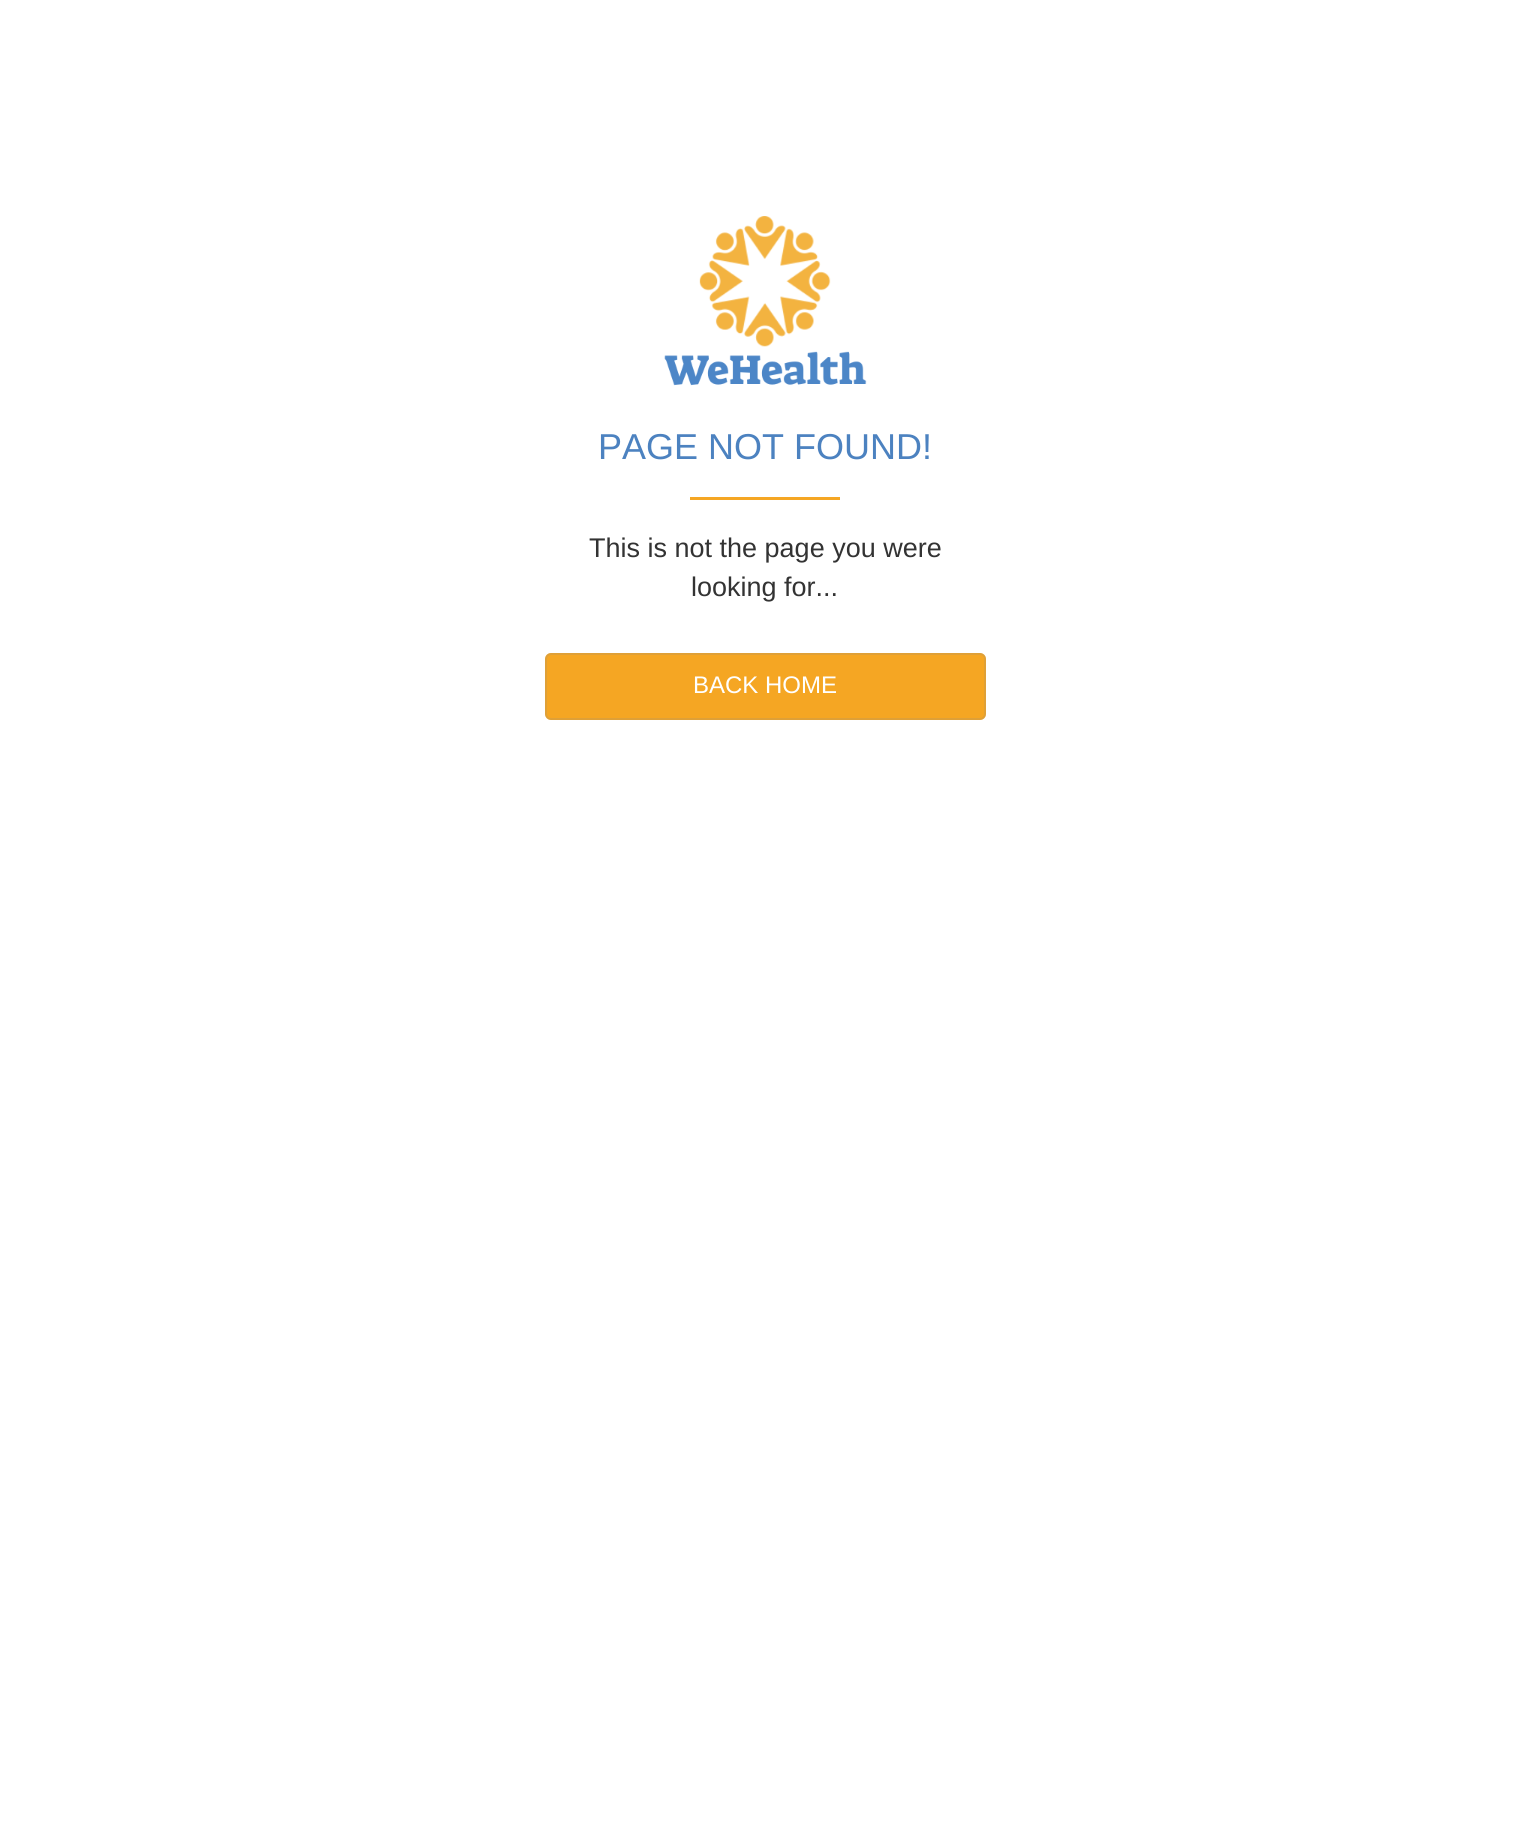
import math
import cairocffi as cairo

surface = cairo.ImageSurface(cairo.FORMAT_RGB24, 1530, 1835)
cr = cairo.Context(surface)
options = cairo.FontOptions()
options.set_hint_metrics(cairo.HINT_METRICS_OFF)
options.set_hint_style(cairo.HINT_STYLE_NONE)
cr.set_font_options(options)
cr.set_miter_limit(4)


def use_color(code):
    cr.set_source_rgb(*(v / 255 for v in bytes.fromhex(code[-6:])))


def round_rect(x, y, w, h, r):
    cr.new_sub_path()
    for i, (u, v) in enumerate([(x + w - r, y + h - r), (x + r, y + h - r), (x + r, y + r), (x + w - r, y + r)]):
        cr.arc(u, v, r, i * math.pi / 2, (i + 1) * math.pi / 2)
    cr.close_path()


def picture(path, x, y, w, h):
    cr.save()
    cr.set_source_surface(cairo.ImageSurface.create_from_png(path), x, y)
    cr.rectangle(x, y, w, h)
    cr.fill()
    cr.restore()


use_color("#ffffff")
cr.paint()
picture("img1.png", 664, 216, 203, 170)
cr.select_font_face("Liberation Sans")
cr.set_font_size(36)
use_color("#4c82c0")
cr.move_to(598, 459)
cr.show_text("PAGE NOT FOUND!")
use_color("#f5a623")
cr.rectangle(690, 497, 150, 3)
cr.fill()
cr.set_font_size(27)
use_color("#333333")
cr.move_to(589, 557)
cr.show_text("This is not the page you were")
cr.move_to(691, 596)
cr.show_text("looking for...")
use_color("#f5a623")
round_rect(545, 653, 441, 67, 6)
cr.fill()
round_rect(546, 654, 439, 65, 5)
cr.set_source_rgba(0.529, 0.529, 0.529, 0.2)
cr.stroke()
cr.set_font_size(24)
use_color("#ffffff")
cr.move_to(693, 693)
cr.show_text("BACK HOME")
surface.write_to_png("result.png")
